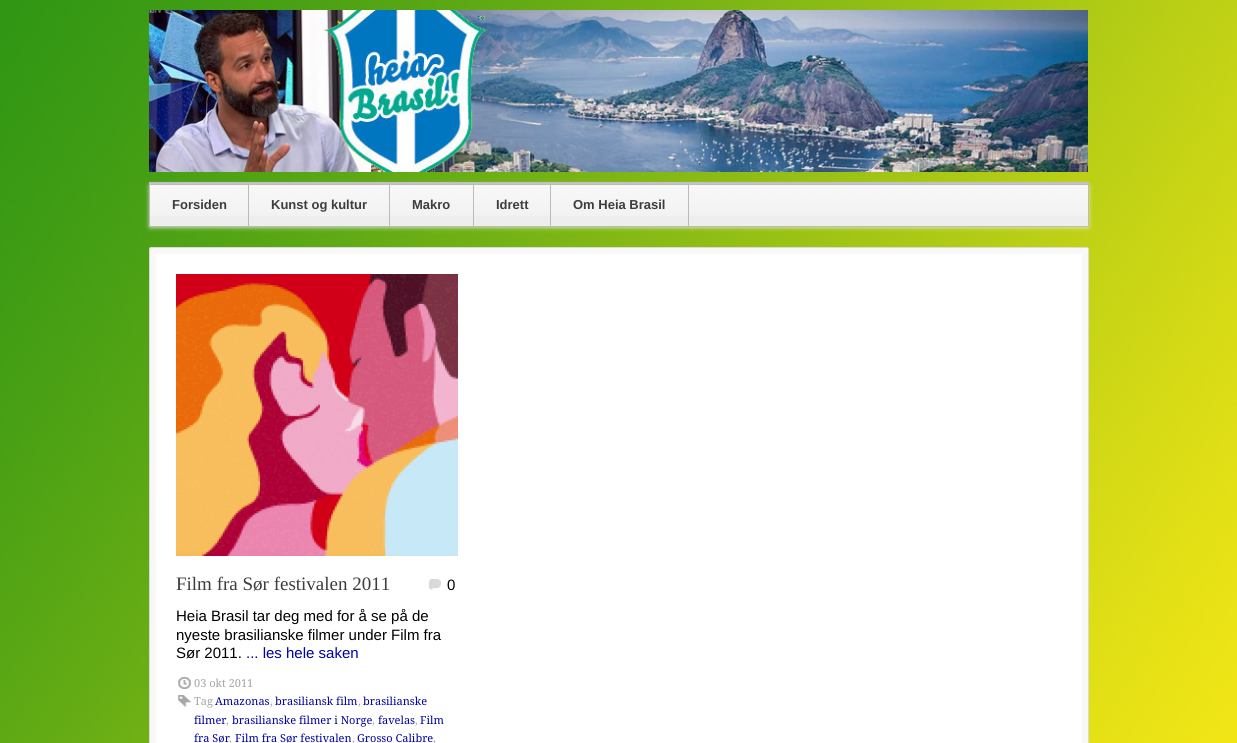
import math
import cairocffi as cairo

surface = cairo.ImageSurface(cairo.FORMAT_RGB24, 1237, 743)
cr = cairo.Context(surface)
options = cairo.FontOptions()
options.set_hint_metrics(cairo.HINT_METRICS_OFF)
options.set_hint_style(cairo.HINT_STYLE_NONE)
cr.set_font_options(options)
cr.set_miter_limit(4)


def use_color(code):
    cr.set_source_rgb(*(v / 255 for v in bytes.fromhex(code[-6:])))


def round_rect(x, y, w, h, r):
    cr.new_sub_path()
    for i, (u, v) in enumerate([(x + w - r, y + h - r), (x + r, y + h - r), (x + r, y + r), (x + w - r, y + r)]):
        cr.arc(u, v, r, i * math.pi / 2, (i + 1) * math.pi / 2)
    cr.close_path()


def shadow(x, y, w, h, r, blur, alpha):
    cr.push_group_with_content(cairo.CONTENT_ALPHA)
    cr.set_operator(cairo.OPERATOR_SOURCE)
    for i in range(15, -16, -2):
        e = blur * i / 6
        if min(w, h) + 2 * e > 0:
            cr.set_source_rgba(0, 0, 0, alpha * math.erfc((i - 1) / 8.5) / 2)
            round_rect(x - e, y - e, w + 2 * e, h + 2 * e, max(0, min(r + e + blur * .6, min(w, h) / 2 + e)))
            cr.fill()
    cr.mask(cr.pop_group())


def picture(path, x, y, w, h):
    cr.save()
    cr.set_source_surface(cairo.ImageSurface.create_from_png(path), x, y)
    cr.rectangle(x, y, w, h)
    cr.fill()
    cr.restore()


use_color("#ffffff")
cr.paint()
picture("img1.png", 0, 0, 1237, 743)
picture("img2.png", 149, 10, 939, 162)
use_color("#bbbbbb")
cr.rectangle(149, 182, 940, 2)
cr.fill()
use_color("#f5f5f5")
shadow(150, 186, 938, 41, 0, 2.5, 1)
use_color("#eeeeee")
cr.rectangle(150, 185, 938, 41)
cr.fill()
picture("img3.png", 150, 185, 938, 31)
cr.rectangle(149.5, 184.5, 939, 42)
use_color("#bbbbbb")
cr.set_line_width(1)
cr.stroke()
cr.rectangle(248, 185, 1, 41)
cr.fill()
cr.select_font_face("Liberation Sans", cairo.FONT_SLANT_NORMAL, cairo.FONT_WEIGHT_BOLD)
cr.set_font_size(13)
use_color("#3d3d3d")
cr.move_to(172, 209)
cr.show_text("Forsiden")
use_color("#bbbbbb")
cr.rectangle(389, 185, 1, 41)
cr.fill()
use_color("#3d3d3d")
cr.move_to(271, 209)
cr.show_text("Kunst og kultur")
use_color("#bbbbbb")
cr.rectangle(473, 185, 1, 41)
cr.fill()
use_color("#3d3d3d")
cr.move_to(412, 209)
cr.show_text("Makro")
use_color("#bbbbbb")
cr.rectangle(550, 185, 1, 41)
cr.fill()
use_color("#3d3d3d")
cr.move_to(496, 209)
cr.show_text("Idrett")
use_color("#bbbbbb")
cr.rectangle(688, 185, 1, 41)
cr.fill()
use_color("#3d3d3d")
cr.move_to(573, 209)
cr.show_text("Om Heia Brasil")
use_color("#f8f8f8")
round_rect(149.5, 247.5, 939, 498, 1.5)
cr.fill_preserve()
use_color("#dadada")
cr.stroke()
use_color("#ffffff")
cr.rectangle(156, 254, 926, 489)
cr.fill()
picture("img4.png", 176, 274, 282, 282)
cr.select_font_face("Liberation Serif")
cr.set_font_size(19)
use_color("#3d3d3d")
cr.move_to(176, 590)
cr.show_text("Film fra Sør festivalen 2011")
picture("img5.png", 429, 579, 12, 11)
cr.select_font_face("Liberation Sans")
cr.set_font_size(15)
use_color("#000000")
cr.move_to(447, 590)
cr.show_text("0")
cr.move_to(176, 621)
cr.show_text("Heia Brasil tar deg med for å se på de")
cr.move_to(176, 640)
cr.show_text("nyeste brasilianske filmer under Film fra")
cr.move_to(176, 658)
cr.show_text("Sør 2011.")
use_color("#0000a3")
cr.move_to(246, 658)
cr.show_text("... les hele saken")
picture("img6.png", 178, 677, 13, 12)
cr.select_font_face("Droid Serif")
cr.set_font_size(11)
use_color("#a4a4a4")
cr.move_to(194, 687)
cr.show_text("03 okt 2011")
picture("img7.png", 178, 695, 13, 12)
cr.move_to(194, 705)
cr.show_text("Tag")
use_color("#0000a3")
cr.move_to(215, 705)
cr.show_text("Amazonas")
use_color("#a4a4a4")
cr.move_to(270, 705)
cr.show_text(",")
use_color("#0000a3")
cr.move_to(275, 705)
cr.show_text("brasiliansk film")
use_color("#a4a4a4")
cr.move_to(358, 705)
cr.show_text(",")
use_color("#0000a3")
cr.move_to(363, 705)
cr.show_text("brasilianske")
cr.move_to(194, 724)
cr.show_text("filmer")
use_color("#a4a4a4")
cr.move_to(226, 724)
cr.show_text(",")
use_color("#0000a3")
cr.move_to(232, 724)
cr.show_text("brasilianske filmer i Norge")
use_color("#a4a4a4")
cr.move_to(372, 724)
cr.show_text(",")
use_color("#0000a3")
cr.move_to(378, 724)
cr.show_text("favelas")
use_color("#a4a4a4")
cr.move_to(415, 724)
cr.show_text(",")
use_color("#0000a3")
cr.move_to(420, 724)
cr.show_text("Film")
cr.move_to(194, 742)
cr.show_text("fra Sør")
use_color("#a4a4a4")
cr.move_to(229, 742)
cr.show_text(",")
use_color("#0000a3")
cr.move_to(235, 742)
cr.show_text("Film fra Sør festivalen")
use_color("#a4a4a4")
cr.move_to(352, 742)
cr.show_text(",")
use_color("#0000a3")
cr.move_to(357, 742)
cr.show_text("Grosso Calibre")
use_color("#a4a4a4")
cr.move_to(433, 742)
cr.show_text(",")
surface.write_to_png("result.png")
